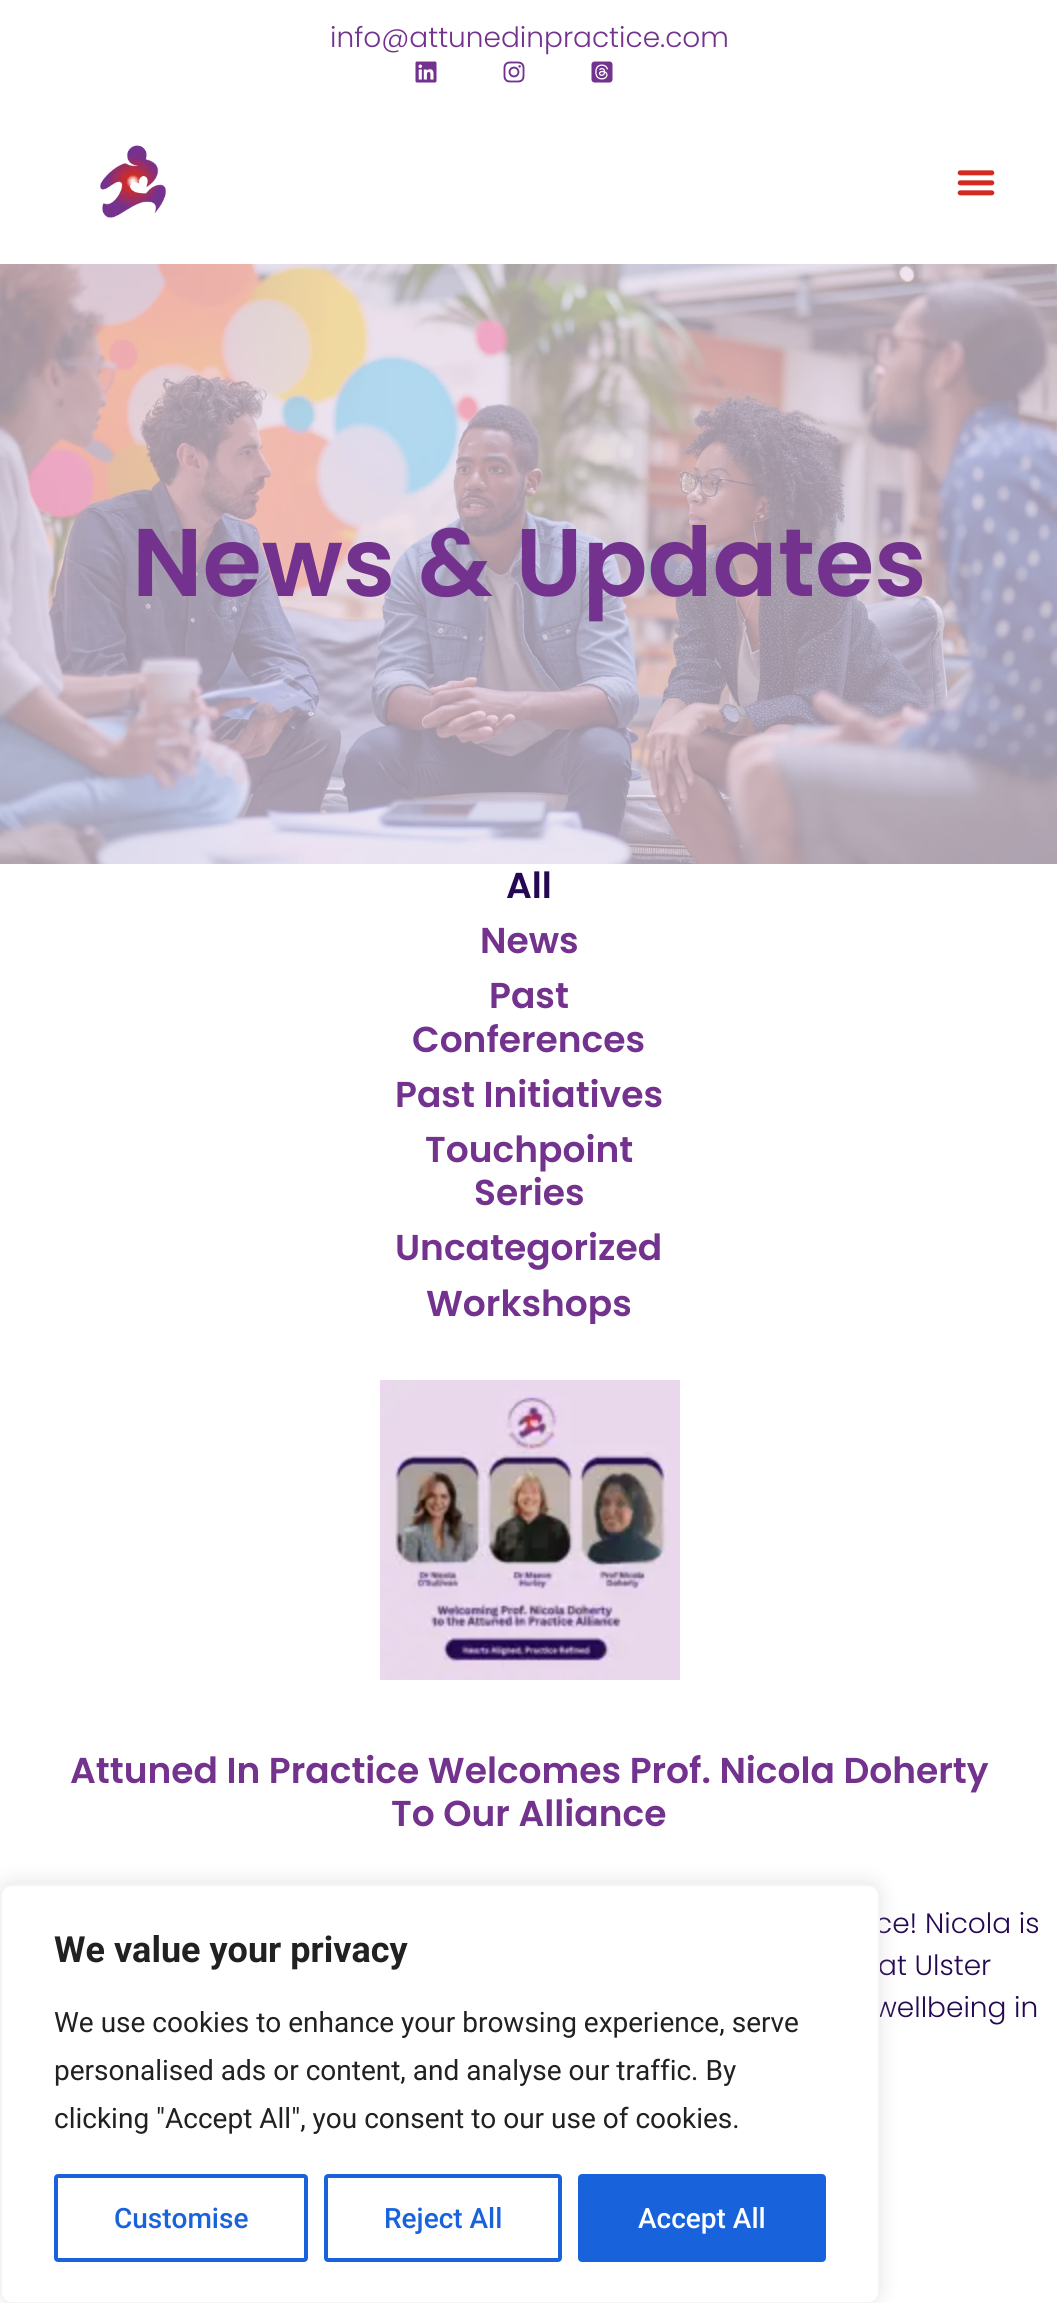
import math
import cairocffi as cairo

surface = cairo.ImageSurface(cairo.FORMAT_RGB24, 1057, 2303)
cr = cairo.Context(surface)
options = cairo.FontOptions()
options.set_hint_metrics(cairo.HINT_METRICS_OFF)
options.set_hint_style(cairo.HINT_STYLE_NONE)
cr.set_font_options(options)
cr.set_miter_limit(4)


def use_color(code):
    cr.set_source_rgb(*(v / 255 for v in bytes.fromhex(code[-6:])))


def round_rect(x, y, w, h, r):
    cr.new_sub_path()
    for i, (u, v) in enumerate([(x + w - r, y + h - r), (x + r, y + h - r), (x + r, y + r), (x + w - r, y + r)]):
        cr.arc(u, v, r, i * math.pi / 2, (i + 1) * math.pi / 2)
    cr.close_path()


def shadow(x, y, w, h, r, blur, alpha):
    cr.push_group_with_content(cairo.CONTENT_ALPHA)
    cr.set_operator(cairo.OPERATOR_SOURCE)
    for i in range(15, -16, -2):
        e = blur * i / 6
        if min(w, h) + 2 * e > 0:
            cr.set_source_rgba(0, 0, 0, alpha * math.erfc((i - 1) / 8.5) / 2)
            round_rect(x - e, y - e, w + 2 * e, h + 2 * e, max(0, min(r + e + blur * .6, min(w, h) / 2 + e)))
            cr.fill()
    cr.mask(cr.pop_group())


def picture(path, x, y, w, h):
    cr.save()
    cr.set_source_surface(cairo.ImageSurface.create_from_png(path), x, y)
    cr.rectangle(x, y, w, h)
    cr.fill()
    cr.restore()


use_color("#ffffff")
cr.paint()
cr.select_font_face("Poppins Light")
cr.set_font_size(28)
use_color("#73328d")
cr.move_to(330, 47)
cr.show_text("info@attunedinpractice.com")
picture("img1.png", 415, 61, 22, 22)
picture("img2.png", 503, 61, 22, 22)
picture("img3.png", 591, 61, 22, 22)
picture("img4.png", 100, 145, 66, 73)
picture("img5.png", 957, 170, 38, 26)
picture("img6.png", 0, 264, 1057, 600)
cr.select_font_face("Poppins SemiBold")
cr.set_font_size(96)
cr.move_to(132, 596)
cr.show_text("News & Updates")
cr.set_font_size(36)
use_color("#250852")
cr.move_to(506, 898)
cr.show_text("All")
use_color("#73328d")
cr.move_to(480, 953)
cr.show_text("News")
cr.move_to(489, 1008)
cr.show_text("Past")
cr.move_to(412, 1052)
cr.show_text("Conferences")
cr.move_to(395, 1107)
cr.show_text("Past Initiatives")
cr.move_to(425, 1162)
cr.show_text("Touchpoint")
cr.move_to(474, 1205)
cr.show_text("Series")
cr.move_to(395, 1260)
cr.show_text("Uncategorized")
cr.save()
cr.rectangle(426, 1282, 206, 42)
cr.clip()
cr.move_to(426, 1316)
cr.show_text("Workshops")
cr.restore()
picture("img7.png", 380, 1380, 300, 300)
cr.move_to(70, 1783)
cr.show_text("Attuned In Practice Welcomes Prof. Nicola Doherty")
cr.move_to(391, 1826)
cr.show_text("To Our Alliance")
cr.select_font_face("Poppins Light")
cr.set_font_size(28)
use_color("#250852")
cr.move_to(875, 1933)
cr.show_text("ce! Nicola is")
cr.move_to(878, 1975)
cr.show_text("at Ulster")
cr.move_to(874, 2017)
cr.show_text("wellbeing in")
use_color("#acabab")
shadow(0, 1882, 880, 420, 12, 10, 0.3)
use_color("#ffffff")
round_rect(1, 1885, 878, 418, 11)
cr.fill_preserve()
use_color("#f4f4f4")
cr.stroke()
cr.select_font_face("Roboto", cairo.FONT_SLANT_NORMAL, cairo.FONT_WEIGHT_BOLD)
cr.set_font_size(36)
use_color("#212121")
cr.move_to(54, 1962)
cr.show_text("We value your privacy")
cr.select_font_face("Roboto")
cr.set_font_size(28)
cr.move_to(54, 2032)
cr.show_text("We use cookies to enhance your browsing experience, serve")
cr.move_to(54, 2080)
cr.show_text("personalised ads or content, and analyse our traffic. By")
cr.move_to(54, 2128)
cr.show_text("clicking \"Accept All\", you consent to our use of cookies.")
round_rect(56, 2176, 250, 84, 2)
use_color("#1863dc")
cr.set_line_width(4)
cr.stroke()
cr.select_font_face("Roboto Medium")
cr.move_to(114, 2228)
cr.show_text("Customise")
round_rect(326, 2176, 234, 84, 2)
cr.stroke()
cr.move_to(384, 2228)
cr.show_text("Reject All")
round_rect(580, 2176, 244, 84, 2)
cr.fill_preserve()
cr.stroke()
use_color("#ffffff")
cr.move_to(638, 2228)
cr.show_text("Accept All")
surface.write_to_png("result.png")
